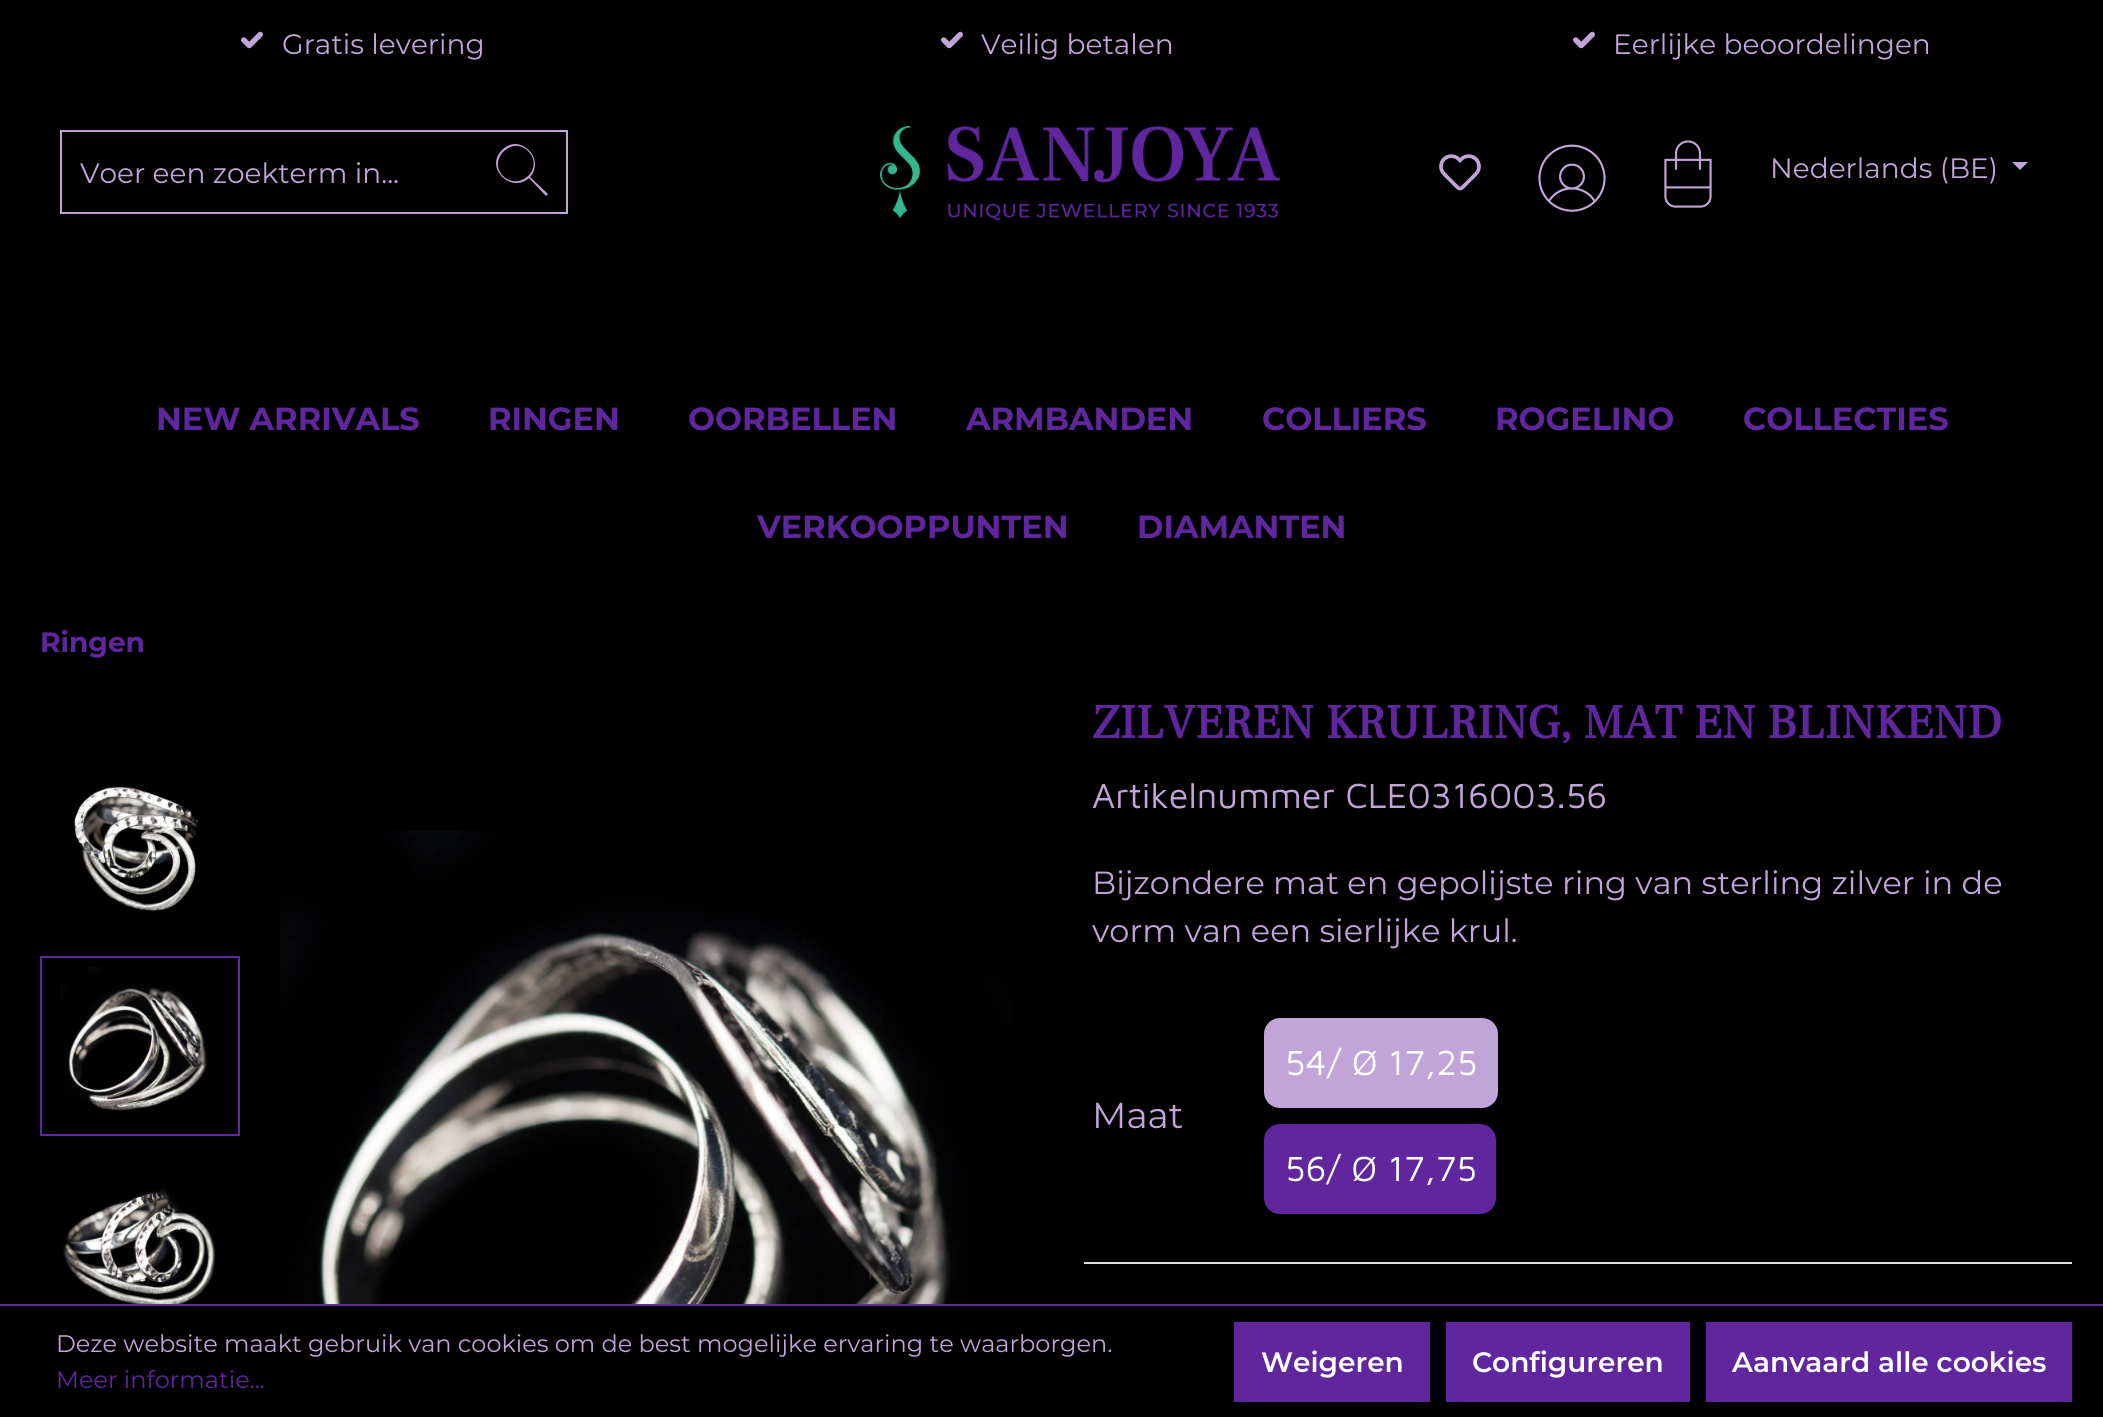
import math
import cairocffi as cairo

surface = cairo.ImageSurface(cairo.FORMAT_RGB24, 2103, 1417)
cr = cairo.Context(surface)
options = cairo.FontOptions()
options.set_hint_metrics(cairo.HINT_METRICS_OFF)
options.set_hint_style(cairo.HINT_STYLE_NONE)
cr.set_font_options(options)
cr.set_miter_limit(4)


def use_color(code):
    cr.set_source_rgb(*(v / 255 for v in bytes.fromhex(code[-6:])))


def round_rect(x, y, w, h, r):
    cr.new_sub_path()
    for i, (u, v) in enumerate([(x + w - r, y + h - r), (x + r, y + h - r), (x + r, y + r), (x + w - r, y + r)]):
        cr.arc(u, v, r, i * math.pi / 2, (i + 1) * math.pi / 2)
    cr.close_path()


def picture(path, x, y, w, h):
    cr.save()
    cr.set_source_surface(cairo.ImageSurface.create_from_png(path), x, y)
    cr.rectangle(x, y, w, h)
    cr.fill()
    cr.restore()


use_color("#000000")
cr.paint()
picture("img1.png", 241, 31, 22, 18)
cr.select_font_face("Montserrat")
cr.set_font_size(28)
use_color("#c1a5d8")
cr.move_to(282, 54)
cr.show_text("Gratis levering")
picture("img1.png", 941, 31, 22, 18)
cr.move_to(981, 54)
cr.show_text("Veilig betalen")
picture("img1.png", 1573, 31, 22, 18)
cr.move_to(1613, 54)
cr.show_text("Eerlijke beoordelingen")
cr.rectangle(61, 131, 506, 82)
cr.stroke()
cr.move_to(80, 183)
cr.show_text("Voer een zoekterm in...")
cr.new_path()
cr.move_to(548, 194)
cr.line_to(530, 177)
cr.curve_to(546, 159, 520, 132, 502, 150)
cr.curve_to(484, 168, 511, 194, 529, 178)
cr.line_to(546, 196)
cr.close_path()
cr.move_to(503, 176)
cr.curve_to(487, 160, 512, 135, 528, 151)
cr.curve_to(545, 168, 520, 192, 503, 176)
cr.close_path()
cr.fill()
picture("img2.png", 880, 126, 400, 94)
picture("img3.png", 1439, 154, 42, 37)
picture("img4.png", 1538, 144, 68, 68)
picture("img5.png", 1664, 140, 48, 68)
cr.move_to(1770, 178)
cr.show_text("Nederlands (BE)")
cr.new_path()
cr.move_to(2012, 162)
cr.line_to(2028, 162)
cr.line_to(2020, 170)
cr.close_path()
cr.fill()
cr.select_font_face("Montserrat", cairo.FONT_SLANT_NORMAL, cairo.FONT_WEIGHT_BOLD)
cr.set_font_size(32)
use_color("#60269e")
cr.move_to(156, 430)
cr.show_text("NEW ARRIVALS")
cr.move_to(488, 430)
cr.show_text("RINGEN")
cr.move_to(688, 430)
cr.show_text("OORBELLEN")
cr.move_to(966, 430)
cr.show_text("ARMBANDEN")
cr.move_to(1262, 430)
cr.show_text("COLLIERS")
cr.move_to(1495, 430)
cr.show_text("ROGELINO")
cr.move_to(1743, 430)
cr.show_text("COLLECTIES")
cr.move_to(757, 538)
cr.show_text("VERKOOPPUNTEN")
cr.move_to(1137, 538)
cr.show_text("DIAMANTEN")
cr.set_font_size(28)
cr.move_to(40, 652)
cr.show_text("Ringen")
picture("img6.png", 73, 786, 126, 126)
cr.rectangle(41, 957, 198, 178)
cr.stroke()
picture("img7.png", 60, 966, 148, 145)
picture("img8.png", 62, 1188, 155, 116)
picture("img9.png", 280, 830, 732, 474)
cr.select_font_face("Frank Ruhl Libre", cairo.FONT_SLANT_NORMAL, cairo.FONT_WEIGHT_BOLD)
cr.set_font_size(48)
cr.move_to(1092, 738)
cr.show_text("ZILVEREN KRULRING, MAT EN BLINKEND")
cr.select_font_face("Maven Pro")
cr.set_font_size(36)
use_color("#c1a5d8")
cr.move_to(1092, 808)
cr.show_text("Artikelnummer CLE0316003.56")
cr.select_font_face("Montserrat")
cr.set_font_size(32)
cr.move_to(1092, 894)
cr.show_text("Bijzondere mat en gepolijste ring van sterling zilver in de")
cr.move_to(1092, 942)
cr.show_text("vorm van een sierlijke krul.")
cr.set_font_size(36)
cr.move_to(1092, 1128)
cr.show_text("Maat")
round_rect(1266, 1020, 230, 86, 14)
cr.fill_preserve()
cr.set_line_width(4)
cr.stroke()
cr.select_font_face("Maven Pro")
use_color("#ffffff")
cr.move_to(1285, 1075)
cr.show_text("54/ Ø 17,25")
use_color("#60269e")
round_rect(1266, 1126, 228, 86, 14)
cr.fill_preserve()
cr.stroke()
use_color("#ffffff")
cr.move_to(1285, 1181)
cr.show_text("56/ Ø 17,75")
use_color("#e0e0e0")
cr.rectangle(1084, 1262, 988, 2)
cr.fill()
use_color("#60269e")
cr.rectangle(0, 1304, 2103, 2)
cr.fill()
cr.select_font_face("Montserrat")
cr.set_font_size(24)
use_color("#c1a5d8")
cr.move_to(56, 1352)
cr.show_text("Deze website maakt gebruik van cookies om de best mogelijke ervaring te waarborgen.")
use_color("#60269e")
cr.move_to(56, 1388)
cr.show_text("Meer informatie...")
cr.rectangle(1234, 1322, 196, 80)
cr.fill()
cr.select_font_face("Montserrat SemiBold")
cr.set_font_size(28)
use_color("#ffffff")
cr.move_to(1261, 1372)
cr.show_text("Weigeren")
use_color("#60269e")
cr.rectangle(1446, 1322, 244, 80)
cr.fill()
use_color("#ffffff")
cr.move_to(1472, 1372)
cr.show_text("Configureren")
use_color("#60269e")
cr.rectangle(1706, 1322, 366, 80)
cr.fill()
use_color("#ffffff")
cr.move_to(1732, 1372)
cr.show_text("Aanvaard alle cookies")
surface.write_to_png("result.png")
